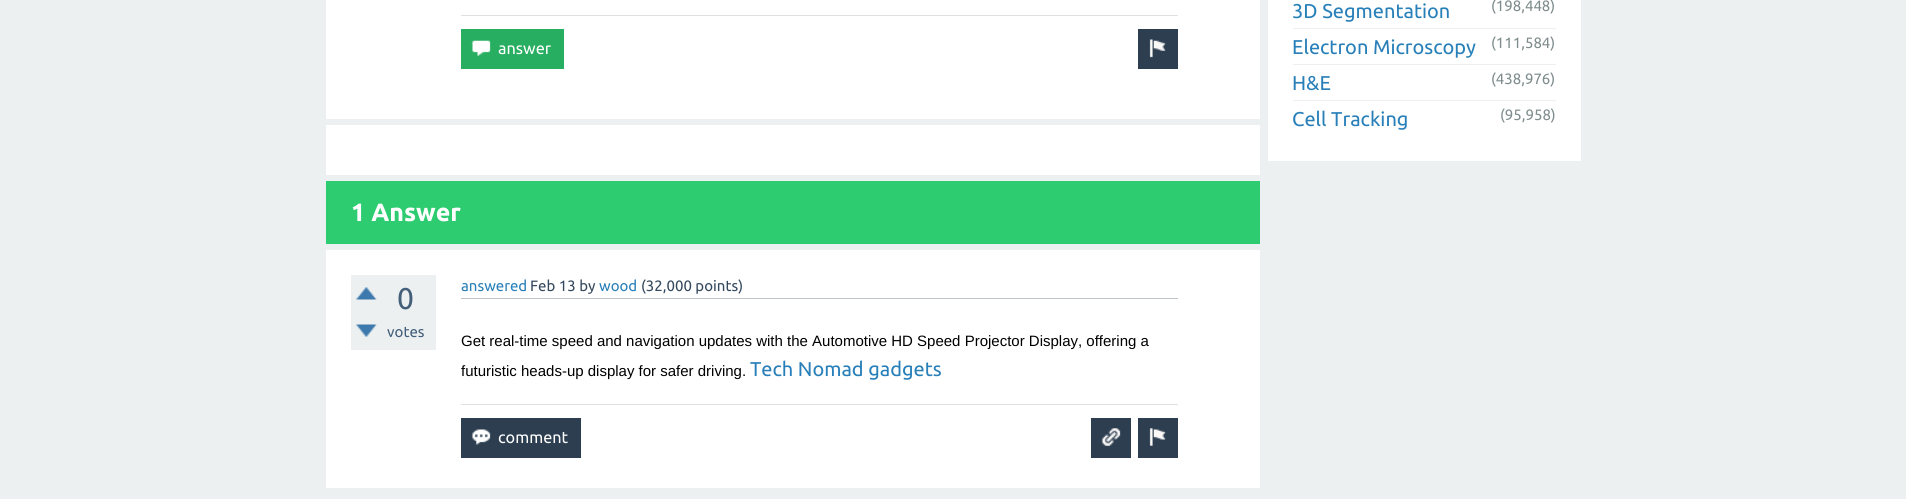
import math
import cairocffi as cairo

surface = cairo.ImageSurface(cairo.FORMAT_RGB24, 1906, 499)
cr = cairo.Context(surface)
options = cairo.FontOptions()
options.set_hint_metrics(cairo.HINT_METRICS_OFF)
options.set_hint_style(cairo.HINT_STYLE_NONE)
cr.set_font_options(options)
cr.set_miter_limit(4)


def use_color(code):
    cr.set_source_rgb(*(v / 255 for v in bytes.fromhex(code[-6:])))


def picture(path, x, y, w, h):
    cr.save()
    cr.set_source_surface(cairo.ImageSurface.create_from_png(path), x, y)
    cr.rectangle(x, y, w, h)
    cr.fill()
    cr.restore()


use_color("#ecf0f1")
cr.paint()
use_color("#ffffff")
cr.rectangle(326, 0, 934, 119)
cr.fill()
use_color("#dee1e3")
cr.rectangle(461, 15, 717, 1)
cr.fill()
use_color("#27ae60")
cr.rectangle(461, 29, 103, 40)
cr.fill()
picture("img1.png", 471, 40, 20, 16)
cr.select_font_face("Ubuntu")
cr.set_font_size(16.25)
use_color("#ffffff")
cr.move_to(498, 54)
cr.show_text("answer")
use_color("#2c3e50")
cr.rectangle(1138, 29, 40, 40)
cr.fill()
picture("img2.png", 1149, 39, 17, 19)
use_color("#ffffff")
cr.rectangle(326, 125, 934, 50)
cr.fill()
use_color("#2ecc71")
cr.rectangle(326, 181, 934, 63)
cr.fill()
cr.select_font_face("Ubuntu", cairo.FONT_SLANT_NORMAL, cairo.FONT_WEIGHT_BOLD)
cr.set_font_size(25)
use_color("#ffffff")
cr.move_to(351, 221)
cr.show_text("1 Answer")
cr.rectangle(326, 250, 934, 238)
cr.fill()
use_color("#ecf0f1")
cr.rectangle(351, 275, 85, 75)
cr.fill()
picture("img3.png", 356, 287, 21, 13)
picture("img4.png", 356, 324, 21, 13)
cr.select_font_face("Ubuntu")
cr.set_font_size(30)
use_color("#445f7a")
cr.move_to(397, 309)
cr.show_text("0")
cr.set_font_size(15)
cr.move_to(387, 337)
cr.show_text("votes")
use_color("#bdc3c7")
cr.rectangle(461, 298, 717, 1)
cr.fill()
use_color("#2980b9")
cr.move_to(461, 291)
cr.show_text("answered")
use_color("#34495e")
cr.move_to(530, 291)
cr.show_text("Feb 13 by")
use_color("#2980b9")
cr.move_to(599, 291)
cr.show_text("wood")
use_color("#34495e")
cr.move_to(641, 291)
cr.show_text("(32,000 points)")
cr.select_font_face("Liberation Sans")
use_color("#000000")
cr.move_to(461, 346)
cr.show_text("Get real-time speed and navigation updates with the Automotive HD Speed Projector Display, offering a")
cr.move_to(461, 376)
cr.show_text("futuristic heads-up display for safer driving.")
cr.select_font_face("Ubuntu")
cr.set_font_size(20)
use_color("#2980b9")
cr.move_to(750, 376)
cr.show_text("Tech Nomad gadgets")
use_color("#dee1e3")
cr.rectangle(461, 404, 717, 1)
cr.fill()
use_color("#2c3e50")
cr.rectangle(461, 418, 120, 40)
cr.fill()
picture("img5.png", 471, 429, 20, 16)
cr.set_font_size(16.25)
use_color("#ffffff")
cr.move_to(498, 443)
cr.show_text("comment")
use_color("#2c3e50")
cr.rectangle(1091, 418, 40, 40)
cr.fill()
picture("img6.png", 1101, 428, 20, 19)
cr.rectangle(1138, 418, 40, 40)
cr.fill()
picture("img7.png", 1149, 428, 17, 18)
use_color("#ffffff")
cr.rectangle(1268, 0, 313, 161)
cr.fill()
use_color("#ecf0f1")
cr.rectangle(1293, 28, 263, 1)
cr.fill()
cr.set_font_size(20)
use_color("#2980b9")
cr.move_to(1292, 18)
cr.show_text("3D Segmentation")
cr.set_font_size(15)
use_color("#7f8c8d")
cr.move_to(1491, 11)
cr.show_text("(198,448)")
use_color("#ecf0f1")
cr.rectangle(1293, 64, 263, 1)
cr.fill()
cr.set_font_size(20)
use_color("#2980b9")
cr.move_to(1292, 54)
cr.show_text("Electron Microscopy")
cr.set_font_size(15)
use_color("#7f8c8d")
cr.move_to(1491, 48)
cr.show_text("(111,584)")
use_color("#ecf0f1")
cr.rectangle(1293, 100, 263, 1)
cr.fill()
cr.set_font_size(20)
use_color("#2980b9")
cr.move_to(1292, 90)
cr.show_text("H&E")
cr.set_font_size(15)
use_color("#7f8c8d")
cr.move_to(1491, 84)
cr.show_text("(438,976)")
cr.set_font_size(20)
use_color("#2980b9")
cr.move_to(1292, 126)
cr.show_text("Cell Tracking")
cr.set_font_size(15)
use_color("#7f8c8d")
cr.move_to(1500, 120)
cr.show_text("(95,958)")
surface.write_to_png("result.png")
